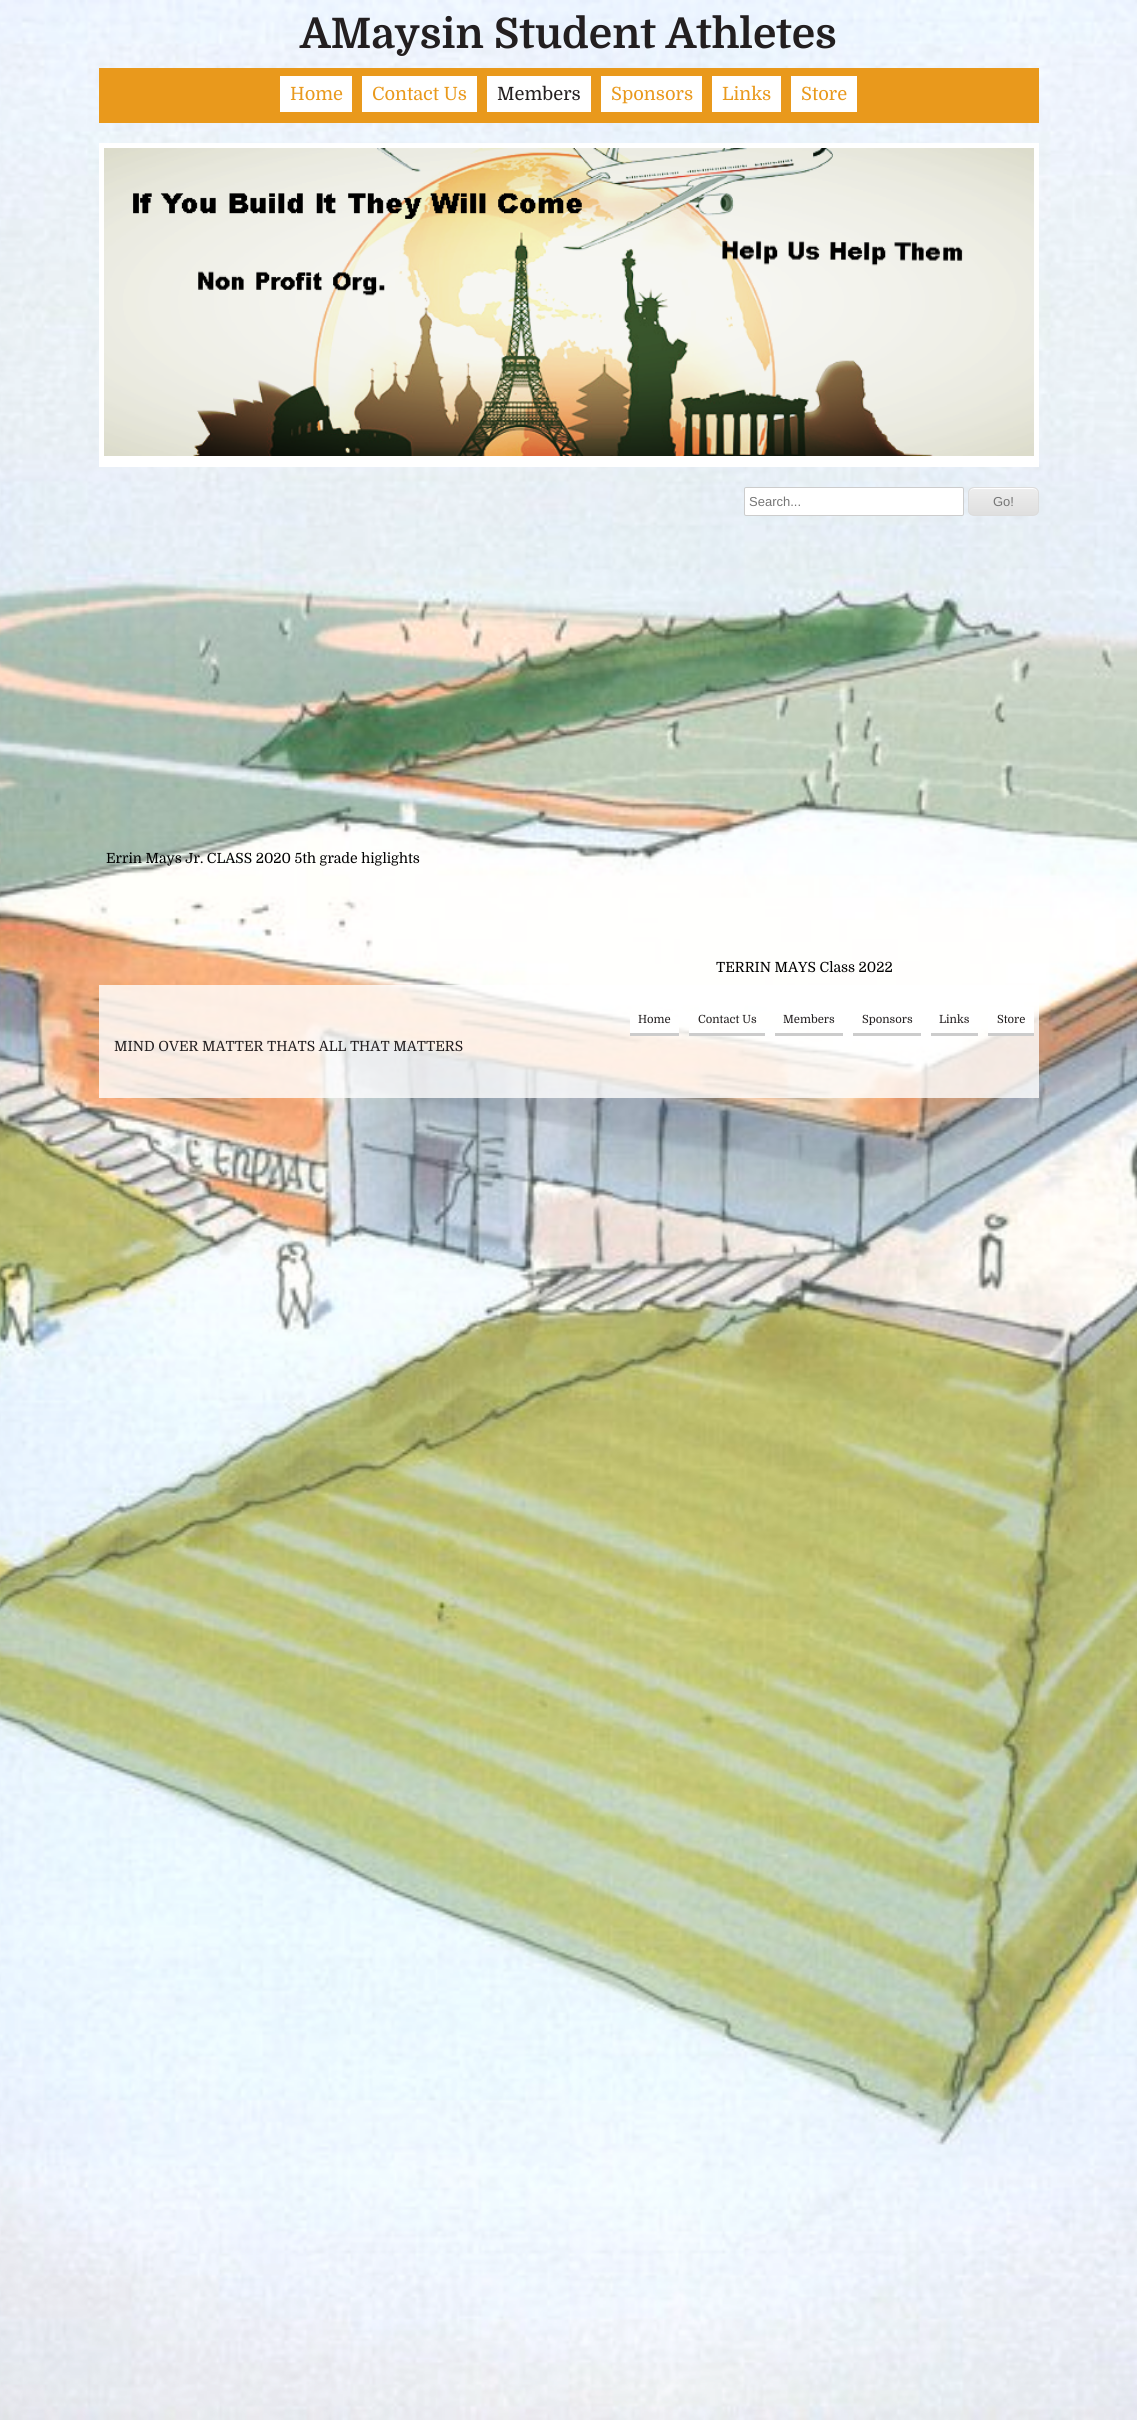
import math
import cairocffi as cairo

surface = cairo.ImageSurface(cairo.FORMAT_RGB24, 1137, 2420)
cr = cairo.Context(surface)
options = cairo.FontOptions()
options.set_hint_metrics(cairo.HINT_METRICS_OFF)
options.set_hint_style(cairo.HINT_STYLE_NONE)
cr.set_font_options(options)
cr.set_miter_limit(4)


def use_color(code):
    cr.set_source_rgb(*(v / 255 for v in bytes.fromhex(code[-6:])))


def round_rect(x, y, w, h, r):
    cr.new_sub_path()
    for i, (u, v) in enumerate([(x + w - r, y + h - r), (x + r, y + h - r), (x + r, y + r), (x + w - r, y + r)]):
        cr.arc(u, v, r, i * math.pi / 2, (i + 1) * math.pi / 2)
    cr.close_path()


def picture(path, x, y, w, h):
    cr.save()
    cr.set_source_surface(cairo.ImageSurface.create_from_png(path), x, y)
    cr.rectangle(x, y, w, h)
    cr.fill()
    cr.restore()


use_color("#ffffff")
cr.paint()
picture("img1.png", 0, 0, 1137, 2420)
cr.select_font_face("Domine", cairo.FONT_SLANT_NORMAL, cairo.FONT_WEIGHT_BOLD)
cr.set_font_size(42)
use_color("#231f20")
cr.move_to(300, 48)
cr.show_text("AMaysin Student Athletes")
use_color("#e9991c")
cr.rectangle(99, 68, 940, 55)
cr.fill()
use_color("#ffffff")
cr.rectangle(280, 76, 72, 36)
cr.fill()
cr.select_font_face("Domine")
cr.set_font_size(18.25)
use_color("#e9991c")
cr.move_to(290, 100)
cr.show_text("Home")
use_color("#ffffff")
cr.rectangle(362, 76, 115, 36)
cr.fill()
use_color("#e9991c")
cr.move_to(372, 100)
cr.show_text("Contact Us")
use_color("#ffffff")
cr.rectangle(487, 76, 104, 36)
cr.fill()
use_color("#231f20")
cr.move_to(497, 100)
cr.show_text("Members")
use_color("#ffffff")
cr.rectangle(601, 76, 101, 36)
cr.fill()
use_color("#e9991c")
cr.move_to(611, 100)
cr.show_text("Sponsors")
use_color("#ffffff")
cr.rectangle(712, 76, 69, 36)
cr.fill()
use_color("#e9991c")
cr.move_to(722, 100)
cr.show_text("Links")
use_color("#ffffff")
cr.rectangle(791, 76, 66, 36)
cr.fill()
use_color("#e9991c")
cr.move_to(801, 100)
cr.show_text("Store")
use_color("#ffffff")
cr.rectangle(99, 143, 940, 324)
cr.fill()
picture("img2.png", 104, 148, 930, 308)
round_rect(744.5, 487.5, 219, 28, 1.5)
cr.fill_preserve()
use_color("#cccccc")
cr.set_line_width(1)
cr.stroke()
cr.select_font_face("Liberation Sans")
cr.set_font_size(13)
use_color("#757575")
cr.move_to(749, 506)
cr.show_text("Search...")
cr.save()
round_rect(968, 487, 71, 29, 6)
cr.clip()
gradient = cairo.LinearGradient(969, 488, 969, 515)
gradient.add_color_stop_rgba(0.05, 0.929, 0.929, 0.929, 1)
gradient.add_color_stop_rgba(1, 0.875, 0.875, 0.875, 1)
cr.set_source(gradient)
cr.rectangle(968, 488, 71, 27)
cr.fill()
cr.restore()
use_color("#ffffff")
cr.new_path()
cr.move_to(974, 489)
cr.line_to(1033, 489)
cr.curve_to(1036, 489, 1038, 491, 1038, 494)
cr.curve_to(1038, 486, 1029, 488, 1023, 488)
cr.line_to(984, 488)
cr.curve_to(978, 488, 969, 486, 969, 494)
cr.curve_to(969, 491, 971, 489, 974, 489)
cr.close_path()
cr.fill()
round_rect(968.5, 487.5, 70, 28, 5.5)
use_color("#dcdcdc")
cr.stroke()
use_color("#757575")
cr.move_to(993, 506)
cr.show_text("Go!")
cr.select_font_face("Domine")
cr.set_font_size(14)
use_color("#000000")
cr.move_to(106, 863)
cr.show_text("Errin Mays Jr. CLASS 2020 5th grade higlights")
cr.move_to(716, 972)
cr.show_text("TERRIN MAYS Class 2022")
cr.set_source_rgba(1, 1, 1, 0.8)
cr.rectangle(99, 985, 940, 113)
cr.fill()
use_color("#ffffff")
cr.rectangle(630, 1017, 49, 16)
cr.fill()
use_color("#cccccc")
cr.rectangle(630, 1033, 49, 3)
cr.fill()
cr.set_font_size(11.25)
use_color("#231f20")
cr.move_to(638, 1023)
cr.show_text("Home")
use_color("#ffffff")
cr.rectangle(689, 1028, 24, 5)
cr.fill()
use_color("#cccccc")
cr.rectangle(689, 1033, 76, 3)
cr.fill()
use_color("#231f20")
cr.move_to(698, 1023)
cr.show_text("Contact Us")
use_color("#cccccc")
cr.rectangle(775, 1033, 68, 3)
cr.fill()
use_color("#231f20")
cr.move_to(783, 1023)
cr.show_text("Members")
use_color("#cccccc")
cr.rectangle(853, 1033, 68, 3)
cr.fill()
use_color("#231f20")
cr.move_to(862, 1023)
cr.show_text("Sponsors")
use_color("#cccccc")
cr.rectangle(931, 1033, 47, 3)
cr.fill()
use_color("#231f20")
cr.move_to(939, 1023)
cr.show_text("Links")
use_color("#ffffff")
cr.rectangle(988, 1007, 46, 26)
cr.fill()
use_color("#cccccc")
cr.rectangle(988, 1033, 46, 3)
cr.fill()
use_color("#231f20")
cr.move_to(997, 1023)
cr.show_text("Store")
cr.set_font_size(14)
cr.move_to(114, 1051)
cr.show_text("MIND OVER MATTER THATS ALL THAT MATTERS")
surface.write_to_png("result.png")
